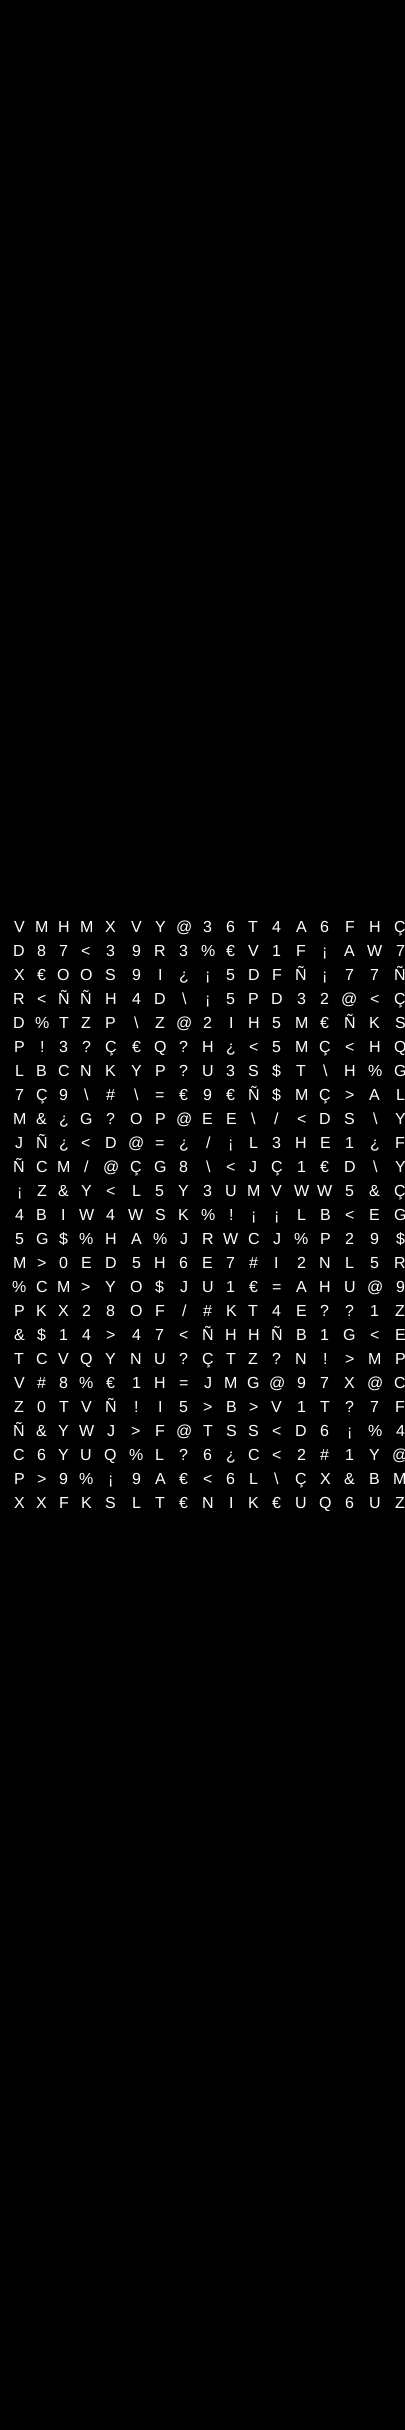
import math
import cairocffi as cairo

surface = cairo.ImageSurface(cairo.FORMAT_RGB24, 405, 2430)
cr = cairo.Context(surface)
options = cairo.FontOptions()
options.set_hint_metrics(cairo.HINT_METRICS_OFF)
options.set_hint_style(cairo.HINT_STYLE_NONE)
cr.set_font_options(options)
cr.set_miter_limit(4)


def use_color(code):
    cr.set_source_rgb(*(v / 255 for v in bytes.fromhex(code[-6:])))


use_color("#000000")
cr.paint()
cr.select_font_face("Liberation Sans")
cr.set_font_size(16)
use_color("#ffffff")
cr.move_to(14, 932)
cr.show_text("V")
cr.move_to(35, 932)
cr.show_text("M")
cr.move_to(58, 932)
cr.show_text("H")
cr.move_to(80, 932)
cr.show_text("M")
cr.move_to(105, 932)
cr.show_text("X")
cr.move_to(131, 932)
cr.show_text("V")
cr.move_to(155, 932)
cr.show_text("Y")
cr.move_to(176, 932)
cr.show_text("@")
cr.move_to(203, 932)
cr.show_text("3")
cr.move_to(226, 932)
cr.show_text("6")
cr.move_to(248, 932)
cr.show_text("T")
cr.move_to(272, 932)
cr.show_text("4")
cr.move_to(296, 932)
cr.show_text("A")
cr.move_to(320, 932)
cr.show_text("6")
cr.move_to(345, 932)
cr.show_text("F")
cr.move_to(369, 932)
cr.show_text("H")
cr.move_to(394, 932)
cr.show_text("Ç")
cr.move_to(13, 956)
cr.show_text("D")
cr.move_to(37, 956)
cr.show_text("8")
cr.move_to(59, 956)
cr.show_text("7")
cr.move_to(81, 956)
cr.show_text("<")
cr.move_to(106, 956)
cr.show_text("3")
cr.move_to(132, 956)
cr.show_text("9")
cr.move_to(154, 956)
cr.show_text("R")
cr.move_to(179, 956)
cr.show_text("3")
cr.move_to(201, 956)
cr.show_text("%")
cr.move_to(226, 956)
cr.show_text("€")
cr.move_to(248, 956)
cr.show_text("V")
cr.move_to(272, 956)
cr.show_text("1")
cr.move_to(296, 956)
cr.show_text("F")
cr.move_to(322, 956)
cr.show_text("¡")
cr.move_to(344, 956)
cr.show_text("A")
cr.move_to(367, 956)
cr.show_text("W")
cr.move_to(396, 956)
cr.show_text("7")
cr.move_to(14, 980)
cr.show_text("X")
cr.move_to(37, 980)
cr.show_text("€")
cr.move_to(57, 980)
cr.show_text("O")
cr.move_to(80, 980)
cr.show_text("O")
cr.move_to(105, 980)
cr.show_text("S")
cr.move_to(132, 980)
cr.show_text("9")
cr.move_to(158, 980)
cr.show_text("I")
cr.move_to(179, 980)
cr.show_text("¿")
cr.move_to(205, 980)
cr.show_text("¡")
cr.move_to(226, 980)
cr.show_text("5")
cr.move_to(248, 980)
cr.show_text("D")
cr.move_to(272, 980)
cr.show_text("F")
cr.move_to(295, 980)
cr.show_text("Ñ")
cr.move_to(322, 980)
cr.show_text("¡")
cr.move_to(345, 980)
cr.show_text("7")
cr.move_to(370, 980)
cr.show_text("7")
cr.move_to(394, 980)
cr.show_text("Ñ")
cr.move_to(13, 1004)
cr.show_text("R")
cr.move_to(37, 1004)
cr.show_text("<")
cr.move_to(58, 1004)
cr.show_text("Ñ")
cr.move_to(80, 1004)
cr.show_text("Ñ")
cr.move_to(105, 1004)
cr.show_text("H")
cr.move_to(132, 1004)
cr.show_text("4")
cr.move_to(154, 1004)
cr.show_text("D")
cr.move_to(182, 1004)
cr.show_text("\\")
cr.move_to(205, 1004)
cr.show_text("¡")
cr.move_to(226, 1004)
cr.show_text("5")
cr.move_to(248, 1004)
cr.show_text("P")
cr.move_to(271, 1004)
cr.show_text("D")
cr.move_to(297, 1004)
cr.show_text("3")
cr.move_to(320, 1004)
cr.show_text("2")
cr.move_to(341, 1004)
cr.show_text("@")
cr.move_to(370, 1004)
cr.show_text("<")
cr.move_to(394, 1004)
cr.show_text("Ç")
cr.move_to(13, 1028)
cr.show_text("D")
cr.move_to(35, 1028)
cr.show_text("%")
cr.move_to(59, 1028)
cr.show_text("T")
cr.move_to(81, 1028)
cr.show_text("Z")
cr.move_to(105, 1028)
cr.show_text("P")
cr.move_to(134, 1028)
cr.show_text("\\")
cr.move_to(155, 1028)
cr.show_text("Z")
cr.move_to(176, 1028)
cr.show_text("@")
cr.move_to(203, 1028)
cr.show_text("2")
cr.move_to(229, 1028)
cr.show_text("I")
cr.move_to(248, 1028)
cr.show_text("H")
cr.move_to(272, 1028)
cr.show_text("5")
cr.move_to(295, 1028)
cr.show_text("M")
cr.move_to(320, 1028)
cr.show_text("€")
cr.move_to(344, 1028)
cr.show_text("Ñ")
cr.move_to(369, 1028)
cr.show_text("K")
cr.move_to(395, 1028)
cr.show_text("S")
cr.move_to(14, 1052)
cr.show_text("P")
cr.move_to(40, 1052)
cr.show_text("!")
cr.move_to(59, 1052)
cr.show_text("3")
cr.move_to(82, 1052)
cr.show_text("?")
cr.move_to(105, 1052)
cr.show_text("Ç")
cr.move_to(132, 1052)
cr.show_text("€")
cr.move_to(154, 1052)
cr.show_text("Q")
cr.move_to(179, 1052)
cr.show_text("?")
cr.move_to(202, 1052)
cr.show_text("H")
cr.move_to(226, 1052)
cr.show_text("¿")
cr.move_to(249, 1052)
cr.show_text("<")
cr.move_to(272, 1052)
cr.show_text("5")
cr.move_to(295, 1052)
cr.show_text("M")
cr.move_to(319, 1052)
cr.show_text("Ç")
cr.move_to(345, 1052)
cr.show_text("<")
cr.move_to(369, 1052)
cr.show_text("H")
cr.move_to(394, 1052)
cr.show_text("Q")
cr.move_to(15, 1076)
cr.show_text("L")
cr.move_to(36, 1076)
cr.show_text("B")
cr.move_to(58, 1076)
cr.show_text("C")
cr.move_to(80, 1076)
cr.show_text("N")
cr.move_to(105, 1076)
cr.show_text("K")
cr.move_to(131, 1076)
cr.show_text("Y")
cr.move_to(155, 1076)
cr.show_text("P")
cr.move_to(179, 1076)
cr.show_text("?")
cr.move_to(202, 1076)
cr.show_text("U")
cr.move_to(226, 1076)
cr.show_text("3")
cr.move_to(248, 1076)
cr.show_text("S")
cr.move_to(272, 1076)
cr.show_text("$")
cr.move_to(296, 1076)
cr.show_text("T")
cr.move_to(323, 1076)
cr.show_text("\\")
cr.move_to(344, 1076)
cr.show_text("H")
cr.move_to(368, 1076)
cr.show_text("%")
cr.move_to(394, 1076)
cr.show_text("G")
cr.move_to(15, 1100)
cr.show_text("7")
cr.move_to(36, 1100)
cr.show_text("Ç")
cr.move_to(59, 1100)
cr.show_text("9")
cr.move_to(84, 1100)
cr.show_text("\\")
cr.move_to(106, 1100)
cr.show_text("#")
cr.move_to(134, 1100)
cr.show_text("\\")
cr.move_to(155, 1100)
cr.show_text("=")
cr.move_to(179, 1100)
cr.show_text("€")
cr.move_to(203, 1100)
cr.show_text("9")
cr.move_to(226, 1100)
cr.show_text("€")
cr.move_to(248, 1100)
cr.show_text("Ñ")
cr.move_to(272, 1100)
cr.show_text("$")
cr.move_to(295, 1100)
cr.show_text("M")
cr.move_to(319, 1100)
cr.show_text("Ç")
cr.move_to(345, 1100)
cr.show_text(">")
cr.move_to(369, 1100)
cr.show_text("A")
cr.move_to(396, 1100)
cr.show_text("L")
cr.move_to(13, 1124)
cr.show_text("M")
cr.move_to(36, 1124)
cr.show_text("&")
cr.move_to(59, 1124)
cr.show_text("¿")
cr.move_to(80, 1124)
cr.show_text("G")
cr.move_to(106, 1124)
cr.show_text("?")
cr.move_to(130, 1124)
cr.show_text("O")
cr.move_to(155, 1124)
cr.show_text("P")
cr.move_to(176, 1124)
cr.show_text("@")
cr.move_to(202, 1124)
cr.show_text("E")
cr.move_to(226, 1124)
cr.show_text("E")
cr.move_to(251, 1124)
cr.show_text("\\")
cr.move_to(274, 1124)
cr.show_text("/")
cr.move_to(297, 1124)
cr.show_text("<")
cr.move_to(319, 1124)
cr.show_text("D")
cr.move_to(344, 1124)
cr.show_text("S")
cr.move_to(373, 1124)
cr.show_text("\\")
cr.move_to(395, 1124)
cr.show_text("Y")
cr.move_to(15, 1148)
cr.show_text("J")
cr.move_to(36, 1148)
cr.show_text("Ñ")
cr.move_to(59, 1148)
cr.show_text("¿")
cr.move_to(81, 1148)
cr.show_text("<")
cr.move_to(105, 1148)
cr.show_text("D")
cr.move_to(128, 1148)
cr.show_text("@")
cr.move_to(155, 1148)
cr.show_text("=")
cr.move_to(179, 1148)
cr.show_text("¿")
cr.move_to(206, 1148)
cr.show_text("/")
cr.move_to(228, 1148)
cr.show_text("¡")
cr.move_to(249, 1148)
cr.show_text("L")
cr.move_to(272, 1148)
cr.show_text("3")
cr.move_to(295, 1148)
cr.show_text("H")
cr.move_to(320, 1148)
cr.show_text("E")
cr.move_to(345, 1148)
cr.show_text("1")
cr.move_to(370, 1148)
cr.show_text("¿")
cr.move_to(395, 1148)
cr.show_text("F")
cr.move_to(13, 1172)
cr.show_text("Ñ")
cr.move_to(36, 1172)
cr.show_text("C")
cr.move_to(57, 1172)
cr.show_text("M")
cr.move_to(84, 1172)
cr.show_text("/")
cr.move_to(103, 1172)
cr.show_text("@")
cr.move_to(130, 1172)
cr.show_text("Ç")
cr.move_to(154, 1172)
cr.show_text("G")
cr.move_to(179, 1172)
cr.show_text("8")
cr.move_to(206, 1172)
cr.show_text("\\")
cr.move_to(226, 1172)
cr.show_text("<")
cr.move_to(249, 1172)
cr.show_text("J")
cr.move_to(271, 1172)
cr.show_text("Ç")
cr.move_to(297, 1172)
cr.show_text("1")
cr.move_to(320, 1172)
cr.show_text("€")
cr.move_to(344, 1172)
cr.show_text("D")
cr.move_to(373, 1172)
cr.show_text("\\")
cr.move_to(395, 1172)
cr.show_text("Y")
cr.move_to(17, 1196)
cr.show_text("¡")
cr.move_to(37, 1196)
cr.show_text("Z")
cr.move_to(58, 1196)
cr.show_text("&")
cr.move_to(81, 1196)
cr.show_text("Y")
cr.move_to(106, 1196)
cr.show_text("<")
cr.move_to(132, 1196)
cr.show_text("L")
cr.move_to(155, 1196)
cr.show_text("5")
cr.move_to(178, 1196)
cr.show_text("Y")
cr.move_to(203, 1196)
cr.show_text("3")
cr.move_to(225, 1196)
cr.show_text("U")
cr.move_to(247, 1196)
cr.show_text("M")
cr.move_to(271, 1196)
cr.show_text("V")
cr.move_to(294, 1196)
cr.show_text("W")
cr.move_to(317, 1196)
cr.show_text("W")
cr.move_to(345, 1196)
cr.show_text("5")
cr.move_to(369, 1196)
cr.show_text("&")
cr.move_to(394, 1196)
cr.show_text("Ç")
cr.move_to(15, 1220)
cr.show_text("4")
cr.move_to(36, 1220)
cr.show_text("B")
cr.move_to(61, 1220)
cr.show_text("I")
cr.move_to(79, 1220)
cr.show_text("W")
cr.move_to(106, 1220)
cr.show_text("4")
cr.move_to(128, 1220)
cr.show_text("W")
cr.move_to(155, 1220)
cr.show_text("S")
cr.move_to(178, 1220)
cr.show_text("K")
cr.move_to(201, 1220)
cr.show_text("%")
cr.move_to(229, 1220)
cr.show_text("!")
cr.move_to(251, 1220)
cr.show_text("¡")
cr.move_to(274, 1220)
cr.show_text("¡")
cr.move_to(297, 1220)
cr.show_text("L")
cr.move_to(320, 1220)
cr.show_text("B")
cr.move_to(345, 1220)
cr.show_text("<")
cr.move_to(369, 1220)
cr.show_text("E")
cr.move_to(394, 1220)
cr.show_text("G")
cr.move_to(15, 1244)
cr.show_text("5")
cr.move_to(36, 1244)
cr.show_text("G")
cr.move_to(59, 1244)
cr.show_text("$")
cr.move_to(79, 1244)
cr.show_text("%")
cr.move_to(105, 1244)
cr.show_text("H")
cr.move_to(131, 1244)
cr.show_text("A")
cr.move_to(153, 1244)
cr.show_text("%")
cr.move_to(180, 1244)
cr.show_text("J")
cr.move_to(202, 1244)
cr.show_text("R")
cr.move_to(223, 1244)
cr.show_text("W")
cr.move_to(248, 1244)
cr.show_text("C")
cr.move_to(273, 1244)
cr.show_text("J")
cr.move_to(294, 1244)
cr.show_text("%")
cr.move_to(320, 1244)
cr.show_text("P")
cr.move_to(345, 1244)
cr.show_text("2")
cr.move_to(370, 1244)
cr.show_text("9")
cr.move_to(396, 1244)
cr.show_text("$")
cr.move_to(13, 1268)
cr.show_text("M")
cr.move_to(37, 1268)
cr.show_text(">")
cr.move_to(59, 1268)
cr.show_text("0")
cr.move_to(81, 1268)
cr.show_text("E")
cr.move_to(105, 1268)
cr.show_text("D")
cr.move_to(132, 1268)
cr.show_text("5")
cr.move_to(154, 1268)
cr.show_text("H")
cr.move_to(179, 1268)
cr.show_text("6")
cr.move_to(202, 1268)
cr.show_text("E")
cr.move_to(226, 1268)
cr.show_text("7")
cr.move_to(249, 1268)
cr.show_text("#")
cr.move_to(274, 1268)
cr.show_text("I")
cr.move_to(297, 1268)
cr.show_text("2")
cr.move_to(319, 1268)
cr.show_text("N")
cr.move_to(345, 1268)
cr.show_text("L")
cr.move_to(370, 1268)
cr.show_text("5")
cr.move_to(394, 1268)
cr.show_text("R")
cr.move_to(12, 1292)
cr.show_text("%")
cr.move_to(36, 1292)
cr.show_text("C")
cr.move_to(57, 1292)
cr.show_text("M")
cr.move_to(81, 1292)
cr.show_text(">")
cr.move_to(105, 1292)
cr.show_text("Y")
cr.move_to(130, 1292)
cr.show_text("O")
cr.move_to(155, 1292)
cr.show_text("$")
cr.move_to(180, 1292)
cr.show_text("J")
cr.move_to(202, 1292)
cr.show_text("U")
cr.move_to(226, 1292)
cr.show_text("1")
cr.move_to(249, 1292)
cr.show_text("€")
cr.move_to(272, 1292)
cr.show_text("=")
cr.move_to(296, 1292)
cr.show_text("A")
cr.move_to(319, 1292)
cr.show_text("H")
cr.move_to(344, 1292)
cr.show_text("U")
cr.move_to(367, 1292)
cr.show_text("@")
cr.move_to(396, 1292)
cr.show_text("9")
cr.move_to(14, 1316)
cr.show_text("P")
cr.move_to(36, 1316)
cr.show_text("K")
cr.move_to(58, 1316)
cr.show_text("X")
cr.move_to(82, 1316)
cr.show_text("2")
cr.move_to(106, 1316)
cr.show_text("8")
cr.move_to(130, 1316)
cr.show_text("O")
cr.move_to(155, 1316)
cr.show_text("F")
cr.move_to(182, 1316)
cr.show_text("/")
cr.move_to(203, 1316)
cr.show_text("#")
cr.move_to(226, 1316)
cr.show_text("K")
cr.move_to(248, 1316)
cr.show_text("T")
cr.move_to(272, 1316)
cr.show_text("4")
cr.move_to(296, 1316)
cr.show_text("E")
cr.move_to(320, 1316)
cr.show_text("?")
cr.move_to(345, 1316)
cr.show_text("?")
cr.move_to(370, 1316)
cr.show_text("1")
cr.move_to(395, 1316)
cr.show_text("Z")
cr.move_to(14, 1340)
cr.show_text("&")
cr.move_to(37, 1340)
cr.show_text("$")
cr.move_to(59, 1340)
cr.show_text("1")
cr.move_to(82, 1340)
cr.show_text("4")
cr.move_to(106, 1340)
cr.show_text(">")
cr.move_to(132, 1340)
cr.show_text("4")
cr.move_to(155, 1340)
cr.show_text("7")
cr.move_to(179, 1340)
cr.show_text("<")
cr.move_to(202, 1340)
cr.show_text("Ñ")
cr.move_to(225, 1340)
cr.show_text("H")
cr.move_to(248, 1340)
cr.show_text("H")
cr.move_to(271, 1340)
cr.show_text("Ñ")
cr.move_to(296, 1340)
cr.show_text("B")
cr.move_to(320, 1340)
cr.show_text("1")
cr.move_to(343, 1340)
cr.show_text("G")
cr.move_to(370, 1340)
cr.show_text("<")
cr.move_to(395, 1340)
cr.show_text("E")
cr.move_to(14, 1364)
cr.show_text("T")
cr.move_to(36, 1364)
cr.show_text("C")
cr.move_to(58, 1364)
cr.show_text("V")
cr.move_to(80, 1364)
cr.show_text("Q")
cr.move_to(105, 1364)
cr.show_text("Y")
cr.move_to(130, 1364)
cr.show_text("N")
cr.move_to(154, 1364)
cr.show_text("U")
cr.move_to(179, 1364)
cr.show_text("?")
cr.move_to(202, 1364)
cr.show_text("Ç")
cr.move_to(226, 1364)
cr.show_text("T")
cr.move_to(248, 1364)
cr.show_text("Z")
cr.move_to(272, 1364)
cr.show_text("?")
cr.move_to(295, 1364)
cr.show_text("N")
cr.move_to(323, 1364)
cr.show_text("!")
cr.move_to(345, 1364)
cr.show_text(">")
cr.move_to(368, 1364)
cr.show_text("M")
cr.move_to(395, 1364)
cr.show_text("P")
cr.move_to(14, 1388)
cr.show_text("V")
cr.move_to(37, 1388)
cr.show_text("#")
cr.move_to(59, 1388)
cr.show_text("8")
cr.move_to(79, 1388)
cr.show_text("%")
cr.move_to(106, 1388)
cr.show_text("€")
cr.move_to(132, 1388)
cr.show_text("1")
cr.move_to(154, 1388)
cr.show_text("H")
cr.move_to(179, 1388)
cr.show_text("=")
cr.move_to(204, 1388)
cr.show_text("J")
cr.move_to(224, 1388)
cr.show_text("M")
cr.move_to(247, 1388)
cr.show_text("G")
cr.move_to(269, 1388)
cr.show_text("@")
cr.move_to(297, 1388)
cr.show_text("9")
cr.move_to(320, 1388)
cr.show_text("7")
cr.move_to(344, 1388)
cr.show_text("X")
cr.move_to(367, 1388)
cr.show_text("@")
cr.move_to(394, 1388)
cr.show_text("C")
cr.move_to(14, 1412)
cr.show_text("Z")
cr.move_to(37, 1412)
cr.show_text("0")
cr.move_to(59, 1412)
cr.show_text("T")
cr.move_to(81, 1412)
cr.show_text("V")
cr.move_to(105, 1412)
cr.show_text("Ñ")
cr.move_to(134, 1412)
cr.show_text("!")
cr.move_to(158, 1412)
cr.show_text("I")
cr.move_to(179, 1412)
cr.show_text("5")
cr.move_to(203, 1412)
cr.show_text(">")
cr.move_to(226, 1412)
cr.show_text("B")
cr.move_to(249, 1412)
cr.show_text(">")
cr.move_to(271, 1412)
cr.show_text("V")
cr.move_to(297, 1412)
cr.show_text("1")
cr.move_to(320, 1412)
cr.show_text("T")
cr.move_to(345, 1412)
cr.show_text("?")
cr.move_to(370, 1412)
cr.show_text("7")
cr.move_to(395, 1412)
cr.show_text("F")
cr.move_to(13, 1436)
cr.show_text("Ñ")
cr.move_to(36, 1436)
cr.show_text("&")
cr.move_to(58, 1436)
cr.show_text("Y")
cr.move_to(79, 1436)
cr.show_text("W")
cr.move_to(107, 1436)
cr.show_text("J")
cr.move_to(131, 1436)
cr.show_text(">")
cr.move_to(155, 1436)
cr.show_text("F")
cr.move_to(176, 1436)
cr.show_text("@")
cr.move_to(203, 1436)
cr.show_text("T")
cr.move_to(226, 1436)
cr.show_text("S")
cr.move_to(248, 1436)
cr.show_text("S")
cr.move_to(272, 1436)
cr.show_text("<")
cr.move_to(295, 1436)
cr.show_text("D")
cr.move_to(320, 1436)
cr.show_text("6")
cr.move_to(347, 1436)
cr.show_text("¡")
cr.move_to(368, 1436)
cr.show_text("%")
cr.move_to(396, 1436)
cr.show_text("4")
cr.move_to(13, 1460)
cr.show_text("C")
cr.move_to(37, 1460)
cr.show_text("6")
cr.move_to(58, 1460)
cr.show_text("Y")
cr.move_to(80, 1460)
cr.show_text("U")
cr.move_to(104, 1460)
cr.show_text("Q")
cr.move_to(129, 1460)
cr.show_text("%")
cr.move_to(155, 1460)
cr.show_text("L")
cr.move_to(179, 1460)
cr.show_text("?")
cr.move_to(203, 1460)
cr.show_text("6")
cr.move_to(226, 1460)
cr.show_text("¿")
cr.move_to(248, 1460)
cr.show_text("C")
cr.move_to(272, 1460)
cr.show_text("<")
cr.move_to(297, 1460)
cr.show_text("2")
cr.move_to(320, 1460)
cr.show_text("#")
cr.move_to(345, 1460)
cr.show_text("1")
cr.move_to(369, 1460)
cr.show_text("Y")
cr.move_to(392, 1460)
cr.show_text("@")
cr.move_to(14, 1484)
cr.show_text("P")
cr.move_to(37, 1484)
cr.show_text(">")
cr.move_to(59, 1484)
cr.show_text("9")
cr.move_to(79, 1484)
cr.show_text("%")
cr.move_to(108, 1484)
cr.show_text("¡")
cr.move_to(132, 1484)
cr.show_text("9")
cr.move_to(155, 1484)
cr.show_text("A")
cr.move_to(179, 1484)
cr.show_text("€")
cr.move_to(203, 1484)
cr.show_text("<")
cr.move_to(226, 1484)
cr.show_text("6")
cr.move_to(249, 1484)
cr.show_text("L")
cr.move_to(274, 1484)
cr.show_text("\\")
cr.move_to(295, 1484)
cr.show_text("Ç")
cr.move_to(320, 1484)
cr.show_text("X")
cr.move_to(344, 1484)
cr.show_text("&")
cr.move_to(369, 1484)
cr.show_text("B")
cr.move_to(393, 1484)
cr.show_text("M")
cr.move_to(14, 1508)
cr.show_text("X")
cr.move_to(36, 1508)
cr.show_text("X")
cr.move_to(59, 1508)
cr.show_text("F")
cr.move_to(81, 1508)
cr.show_text("K")
cr.move_to(105, 1508)
cr.show_text("S")
cr.move_to(132, 1508)
cr.show_text("L")
cr.move_to(155, 1508)
cr.show_text("T")
cr.move_to(179, 1508)
cr.show_text("€")
cr.move_to(202, 1508)
cr.show_text("N")
cr.move_to(229, 1508)
cr.show_text("I")
cr.move_to(248, 1508)
cr.show_text("K")
cr.move_to(272, 1508)
cr.show_text("€")
cr.move_to(295, 1508)
cr.show_text("U")
cr.move_to(319, 1508)
cr.show_text("Q")
cr.move_to(345, 1508)
cr.show_text("6")
cr.move_to(369, 1508)
cr.show_text("U")
cr.move_to(395, 1508)
cr.show_text("Z")
surface.write_to_png("result.png")
